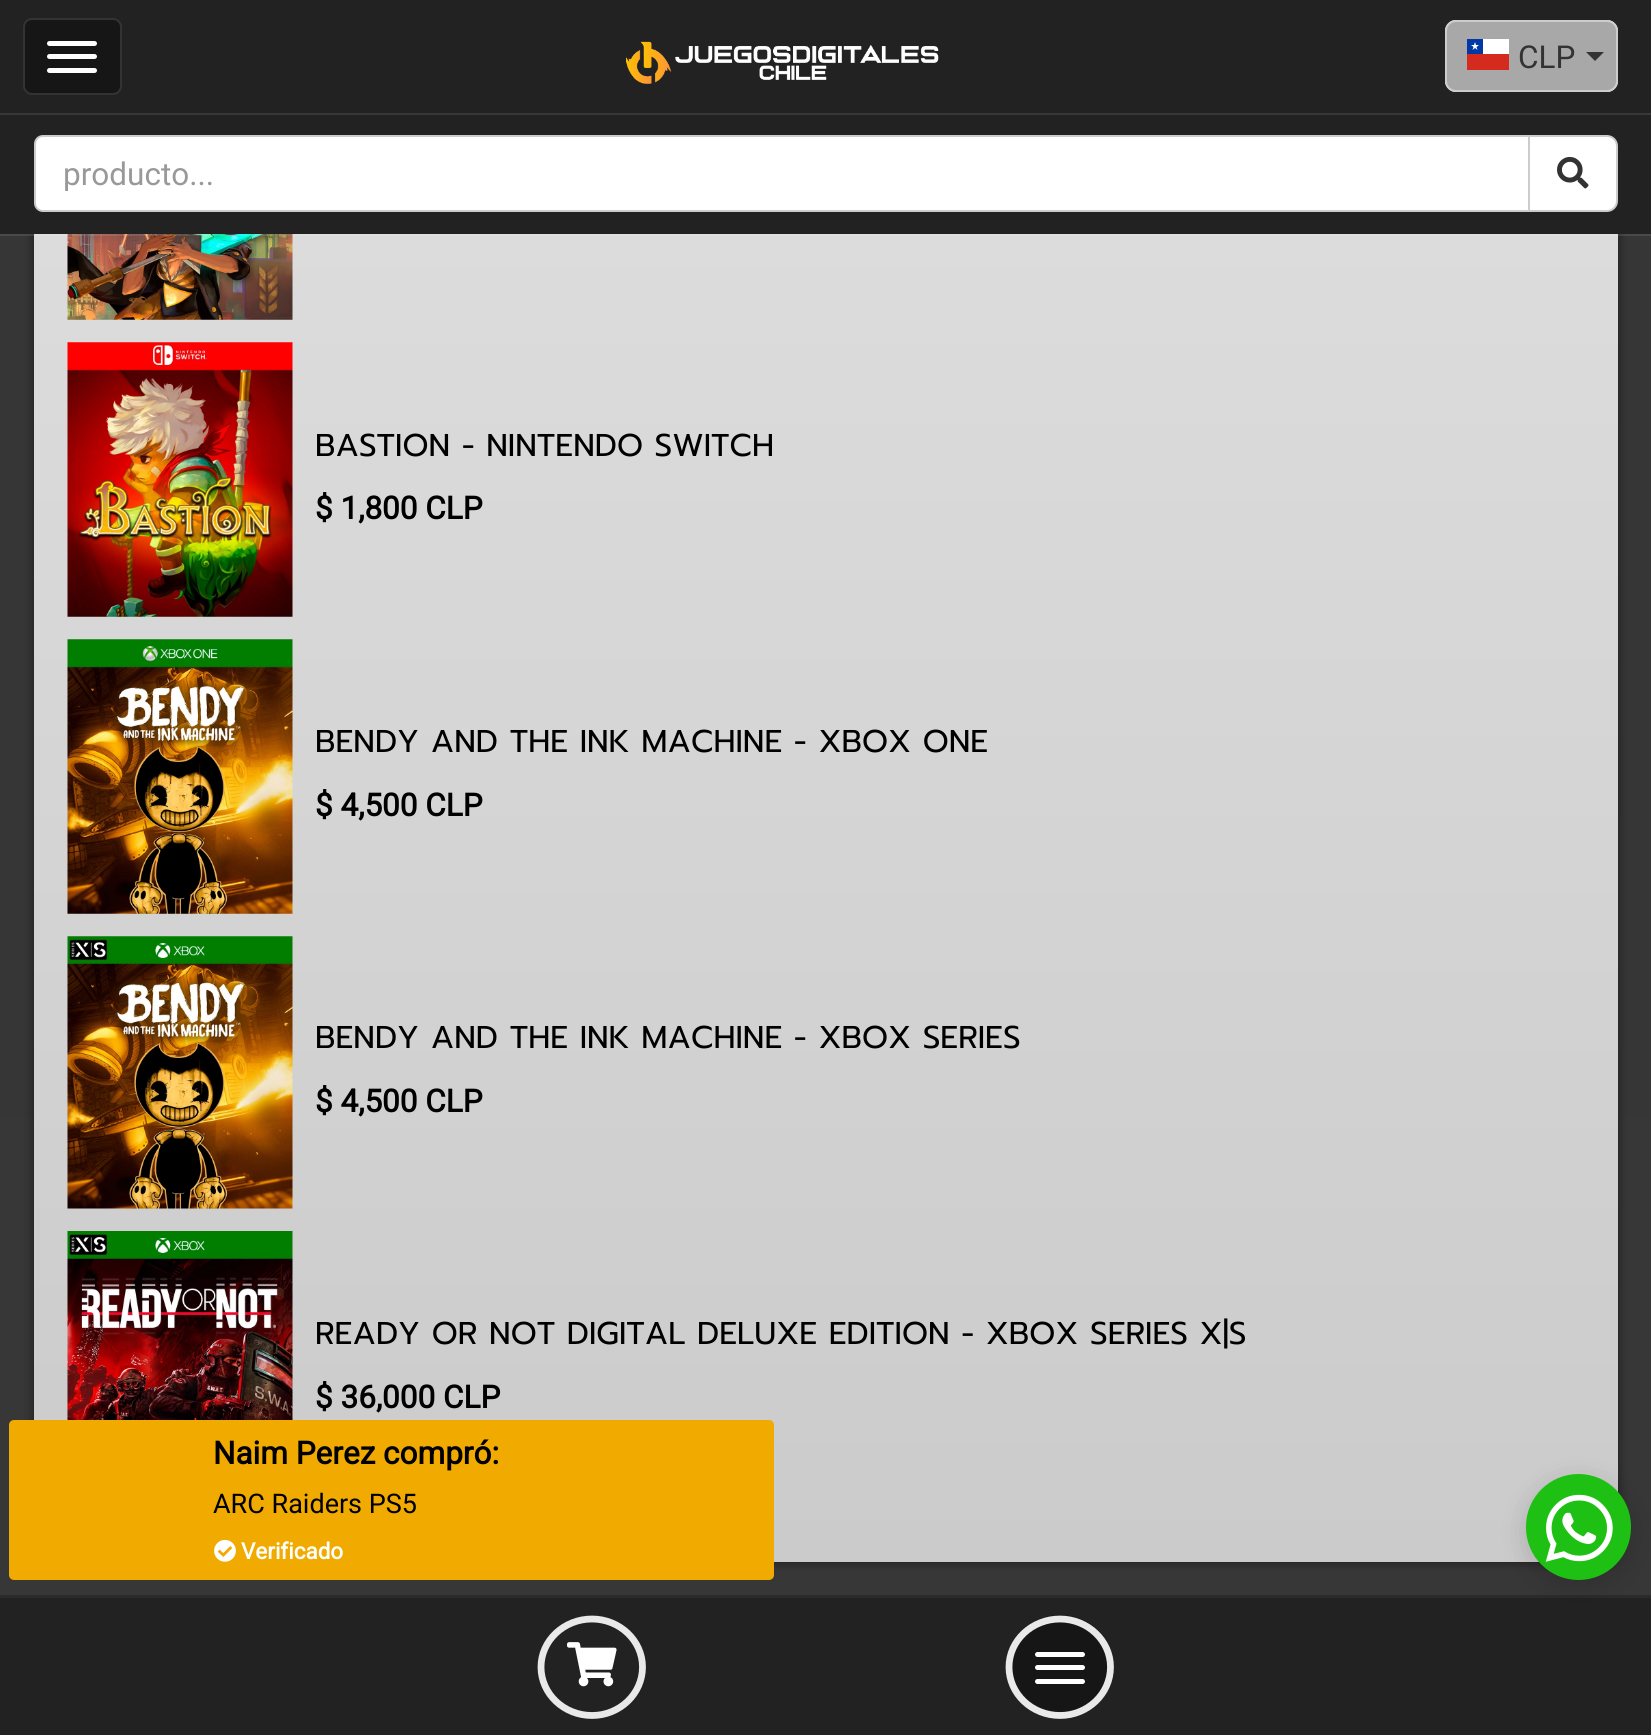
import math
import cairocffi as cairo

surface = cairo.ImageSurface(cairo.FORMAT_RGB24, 1651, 1735)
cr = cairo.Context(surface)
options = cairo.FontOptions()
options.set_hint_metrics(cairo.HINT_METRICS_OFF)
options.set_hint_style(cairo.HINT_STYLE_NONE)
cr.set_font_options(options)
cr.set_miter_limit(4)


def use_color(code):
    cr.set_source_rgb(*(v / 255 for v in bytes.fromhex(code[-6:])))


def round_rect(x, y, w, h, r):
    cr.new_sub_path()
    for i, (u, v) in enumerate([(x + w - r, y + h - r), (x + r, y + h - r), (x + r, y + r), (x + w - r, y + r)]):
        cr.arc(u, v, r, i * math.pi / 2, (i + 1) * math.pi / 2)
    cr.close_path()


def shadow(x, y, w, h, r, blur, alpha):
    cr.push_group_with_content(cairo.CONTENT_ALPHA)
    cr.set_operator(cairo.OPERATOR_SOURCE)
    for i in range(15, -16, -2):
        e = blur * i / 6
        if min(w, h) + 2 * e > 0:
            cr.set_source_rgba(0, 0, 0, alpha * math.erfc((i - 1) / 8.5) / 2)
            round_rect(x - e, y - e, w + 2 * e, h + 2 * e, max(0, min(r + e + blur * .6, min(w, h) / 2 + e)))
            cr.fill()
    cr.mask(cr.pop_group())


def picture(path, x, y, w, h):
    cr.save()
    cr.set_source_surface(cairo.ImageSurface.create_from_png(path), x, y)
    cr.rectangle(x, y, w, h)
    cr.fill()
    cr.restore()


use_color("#ffffff")
cr.paint()
gradient = cairo.LinearGradient(826, -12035, 826, 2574)
gradient.add_color_stop_rgba(0, 0.157, 0.157, 0.157, 1)
gradient.add_color_stop_rgba(1, 0.22, 0.22, 0.22, 1)
cr.set_source(gradient)
cr.rectangle(0, 234, 1651, 1361)
cr.fill()
use_color("#000000")
shadow(34, -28, 1584, 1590, 11, 5.5, 0.5)
use_color("#222222")
cr.rectangle(0, 0, 1651, 113)
cr.fill()
use_color("#161616")
round_rect(24, 19, 97, 75, 8)
cr.fill_preserve()
use_color("#333333")
cr.stroke()
use_color("#ffffff")
round_rect(47, 41, 50, 5, 2.5)
cr.fill()
round_rect(47, 54, 50, 5, 2.5)
cr.fill()
round_rect(47, 68, 50, 5, 2.5)
cr.fill()
picture("img1.png", 626, 41, 313, 43)
round_rect(1445, 20, 173, 72, 11)
cr.fill()
cr.set_source_rgba(0, 0, 0, 0.34)
round_rect(1446, 21, 171, 70, 10)
cr.fill_preserve()
use_color("#cccccc")
cr.stroke()
use_color("#ffffff")
cr.rectangle(1483, 39, 26, 15)
cr.fill()
use_color("#0039a6")
cr.rectangle(1467, 39, 16, 15)
cr.fill()
use_color("#ffffff")
cr.set_fill_rule(cairo.FILL_RULE_EVEN_ODD)
cr.new_path()
cr.move_to(1477.5, 50)
cr.line_to(1475, 48)
cr.line_to(1472.5, 50)
cr.line_to(1473.5, 47)
cr.line_to(1471, 45)
cr.line_to(1474, 45)
cr.line_to(1475, 42)
cr.line_to(1476, 45)
cr.line_to(1479, 45)
cr.line_to(1476.5, 47)
cr.close_path()
cr.fill()
use_color("#d52b1e")
cr.rectangle(1467, 54, 42, 16)
cr.fill()
cr.select_font_face("Roboto")
cr.set_font_size(31.5)
use_color("#333333")
cr.move_to(1518, 68)
cr.show_text("CLP")
cr.set_fill_rule(cairo.FILL_RULE_WINDING)
cr.new_path()
cr.move_to(1586, 52)
cr.line_to(1604, 52)
cr.line_to(1595, 61)
cr.close_path()
cr.fill()
gradient = cairo.LinearGradient(826, -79, 826, 1562)
gradient.add_color_stop_rgba(0, 0.878, 0.878, 0.878, 1)
gradient.add_color_stop_rgba(1, 0.796, 0.796, 0.796, 1)
cr.set_source(gradient)
cr.rectangle(34, 234, 1584, 1328)
cr.fill()
picture("img3.png", 67, 234, 226, 86)
cr.set_source_rgba(1, 1, 1, 0.1)
cr.new_path()
cr.move_to(0, 234)
cr.line_to(0, 236)
cr.line_to(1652, 236)
cr.line_to(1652, 115)
cr.line_to(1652, 234)
cr.close_path()
cr.fill()
use_color("#222222")
cr.rectangle(0, 115, 1651, 119)
cr.fill()
use_color("#383838")
cr.rectangle(0, 113, 1651, 2)
cr.fill()
use_color("#ffffff")
cr.new_path()
cr.move_to(43, 136)
cr.line_to(1529, 136)
cr.line_to(1529, 211)
cr.line_to(43, 211)
cr.curve_to(38.5, 211, 35, 207.5, 35, 203)
cr.line_to(35, 144)
cr.curve_to(35, 139.5, 38.5, 136, 43, 136)
cr.close_path()
cr.fill_preserve()
use_color("#cccccc")
cr.stroke()
cr.save()
cr.rectangle(63, 155, 1438, 36)
cr.clip()
use_color("#999999")
cr.move_to(63, 185)
cr.show_text("producto...")
cr.restore()
use_color("#ffffff")
cr.new_path()
cr.move_to(1529, 136)
cr.line_to(1607, 136)
cr.curve_to(1612.5, 136, 1617, 140.5, 1617, 146)
cr.line_to(1617, 201)
cr.curve_to(1617, 206.5, 1612.5, 211, 1607, 211)
cr.line_to(1529, 211)
cr.close_path()
cr.fill_preserve()
use_color("#cccccc")
cr.stroke()
picture("img2.png", 1557, 156, 32, 33)
picture("img4.png", 67, 342, 226, 275)
cr.select_font_face("Prompt")
use_color("#000000")
cr.move_to(315, 456)
cr.show_text("BASTION - NINTENDO SWITCH")
cr.select_font_face("Roboto", cairo.FONT_SLANT_NORMAL, cairo.FONT_WEIGHT_BOLD)
cr.move_to(315, 519)
cr.show_text("$ 1,800 CLP")
picture("img5.png", 67, 639, 226, 275)
cr.select_font_face("Prompt")
cr.move_to(315, 752)
cr.show_text("BENDY AND THE INK MACHINE - XBOX ONE")
cr.select_font_face("Roboto", cairo.FONT_SLANT_NORMAL, cairo.FONT_WEIGHT_BOLD)
cr.move_to(315, 816)
cr.show_text("$ 4,500 CLP")
picture("img6.png", 67, 936, 226, 273)
cr.select_font_face("Prompt")
cr.move_to(315, 1048)
cr.show_text("BENDY AND THE INK MACHINE - XBOX SERIES")
cr.select_font_face("Roboto", cairo.FONT_SLANT_NORMAL, cairo.FONT_WEIGHT_BOLD)
cr.move_to(315, 1112)
cr.show_text("$ 4,500 CLP")
picture("img7.png", 67, 1231, 226, 189)
cr.select_font_face("Prompt")
cr.move_to(315, 1344)
cr.show_text("READY OR NOT DIGITAL DELUXE EDITION - XBOX SERIES X|S")
cr.select_font_face("Roboto", cairo.FONT_SLANT_NORMAL, cairo.FONT_WEIGHT_BOLD)
cr.move_to(315, 1408)
cr.show_text("$ 36,000 CLP")
use_color("#f1ab00")
round_rect(9, 1420, 765, 160, 5)
cr.fill()
use_color("#000000")
cr.move_to(213, 1464)
cr.show_text("Naim Perez compró:")
cr.select_font_face("Roboto")
cr.set_font_size(27)
cr.move_to(213, 1513)
cr.show_text("ARC Raiders PS5")
picture("img8.png", 214, 1539, 22, 23)
cr.select_font_face("Roboto", cairo.FONT_SLANT_NORMAL, cairo.FONT_WEIGHT_BOLD)
cr.set_font_size(22.5)
use_color("#ffffff")
cr.move_to(241, 1559)
cr.show_text("Verificado")
use_color("#2b2b2b")
cr.rectangle(0, 1595, 1651, 3)
cr.fill()
use_color("#222222")
cr.rectangle(0, 1598, 1651, 137)
cr.fill()
use_color("#000000")
shadow(1526, 1481, 105, 105, 52.5, 13.5, 0.15)
use_color("#1ec113")
round_rect(1526, 1474, 105, 106, 52.5)
cr.fill()
picture("img9.png", 1545, 1494, 68, 68)
cr.new_path()
cr.move_to(592, 1619)
cr.curve_to(619.5, 1619, 642.5, 1640.5, 642.5, 1667)
cr.curve_to(642.5, 1694, 619.5, 1715.5, 592, 1715.5)
cr.curve_to(564, 1715.5, 541, 1694, 541, 1667)
cr.curve_to(541, 1640.5, 564, 1619, 592, 1619)
cr.close_path()
use_color("#e9e9e9")
cr.set_line_width(6.8)
cr.stroke()
picture("img10.png", 567, 1642, 50, 45)
use_color("#161616")
cr.new_path()
cr.move_to(1060, 1615)
cr.curve_to(1090, 1615, 1114, 1638.5, 1114, 1667)
cr.curve_to(1114, 1695.5, 1090, 1719, 1060, 1719)
cr.curve_to(1030, 1719, 1006, 1695.5, 1006, 1667)
cr.curve_to(1006, 1638.5, 1030, 1615, 1060, 1615)
cr.close_path()
cr.fill()
cr.new_path()
cr.move_to(1060, 1619)
cr.curve_to(1087.5, 1619, 1110.5, 1640.5, 1110.5, 1667)
cr.curve_to(1110.5, 1694, 1087.5, 1715.5, 1060, 1715.5)
cr.curve_to(1032, 1715.5, 1009, 1694, 1009, 1667)
cr.curve_to(1009, 1640.5, 1032, 1619, 1060, 1619)
cr.close_path()
use_color("#e9e9e9")
cr.stroke()
use_color("#ffffff")
round_rect(1035, 1652, 50, 5, 2.5)
cr.fill()
round_rect(1035, 1665, 50, 5, 2.5)
cr.fill()
round_rect(1035, 1679, 50, 5, 2.5)
cr.fill()
surface.write_to_png("result.png")
